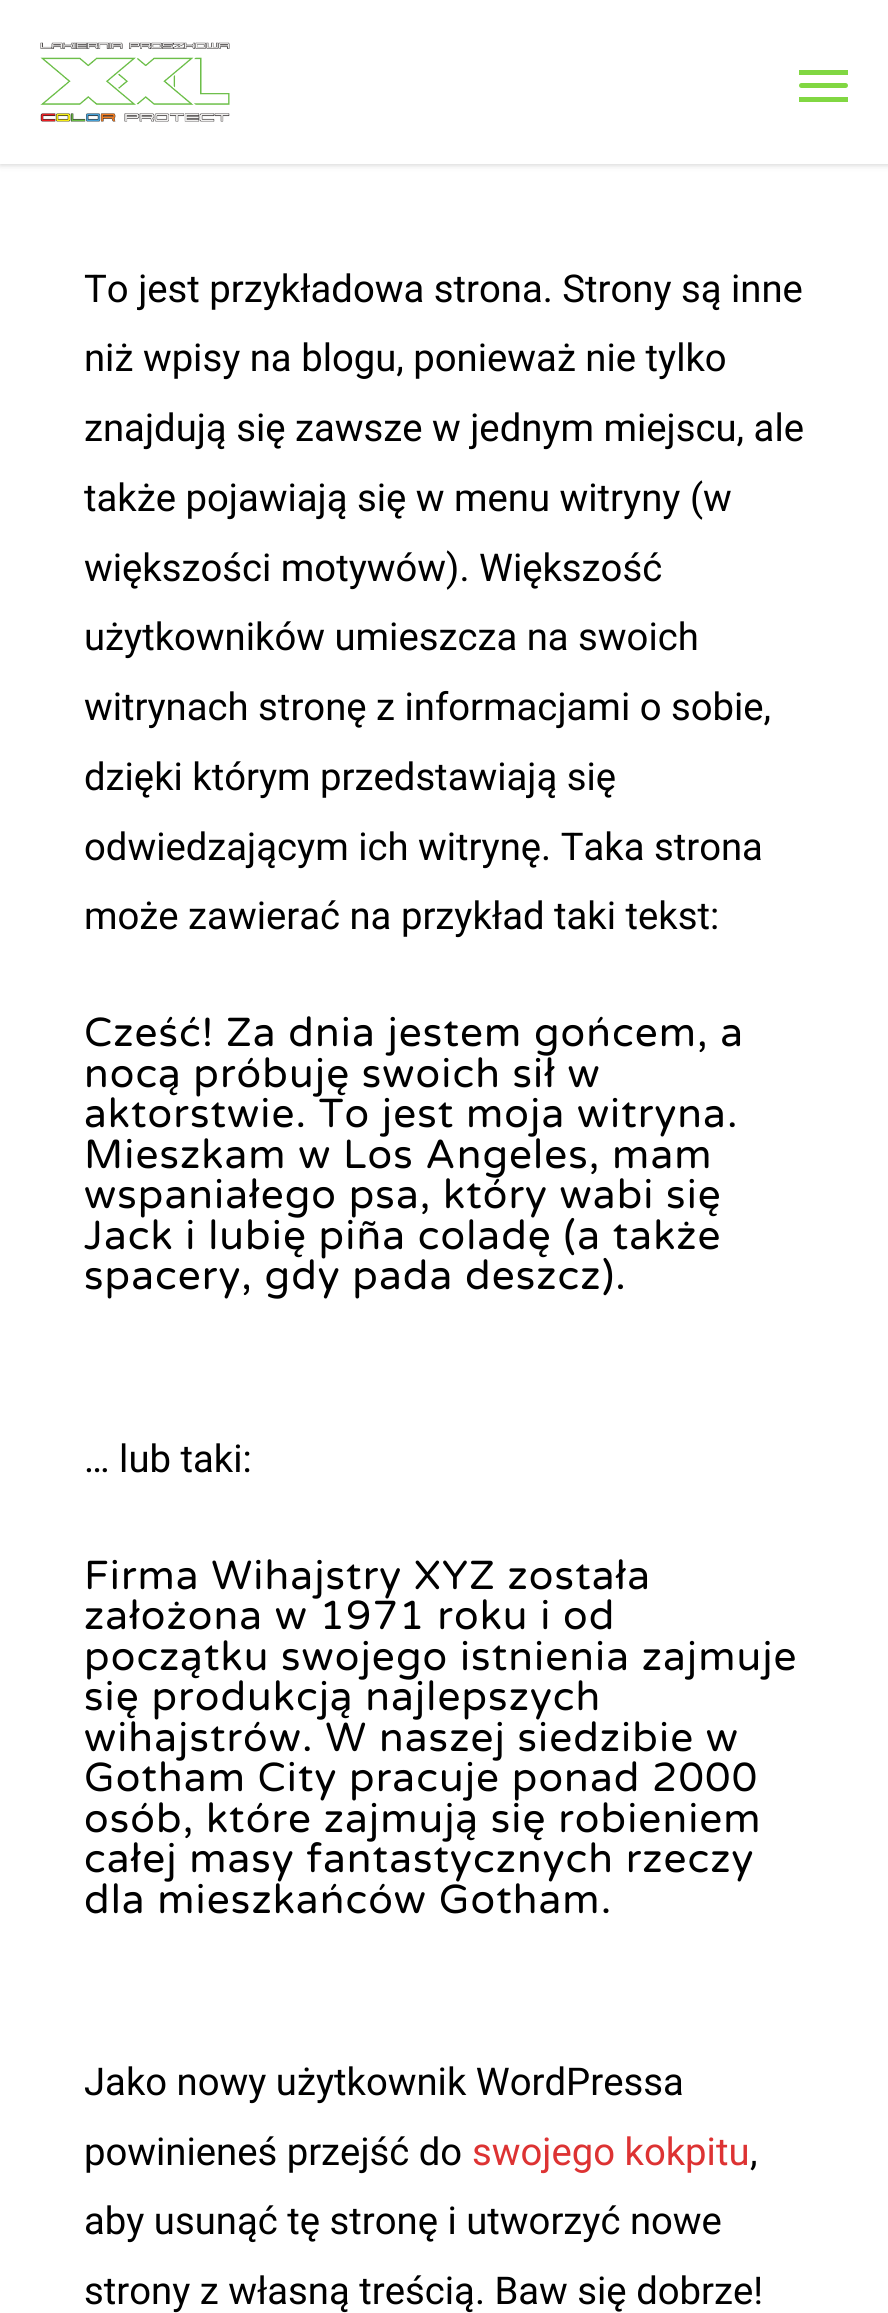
import math
import cairocffi as cairo

surface = cairo.ImageSurface(cairo.FORMAT_RGB24, 888, 2313)
cr = cairo.Context(surface)
options = cairo.FontOptions()
options.set_hint_metrics(cairo.HINT_METRICS_OFF)
options.set_hint_style(cairo.HINT_STYLE_NONE)
cr.set_font_options(options)
cr.set_miter_limit(4)


def use_color(code):
    cr.set_source_rgb(*(v / 255 for v in bytes.fromhex(code[-6:])))


def spaced_text(x, y, s, letter, word):
    cr.move_to(x, y)
    for ch in s:
        cr.show_text(ch)
        cr.rel_move_to(letter + word * (ch == ' '), 0)


def round_rect(x, y, w, h, r):
    cr.new_sub_path()
    for i, (u, v) in enumerate([(x + w - r, y + h - r), (x + r, y + h - r), (x + r, y + r), (x + w - r, y + r)]):
        cr.arc(u, v, r, i * math.pi / 2, (i + 1) * math.pi / 2)
    cr.close_path()


def shadow(x, y, w, h, r, blur, alpha):
    cr.push_group_with_content(cairo.CONTENT_ALPHA)
    cr.set_operator(cairo.OPERATOR_SOURCE)
    for i in range(15, -16, -2):
        e = blur * i / 6
        if min(w, h) + 2 * e > 0:
            cr.set_source_rgba(0, 0, 0, alpha * math.erfc((i - 1) / 8.5) / 2)
            round_rect(x - e, y - e, w + 2 * e, h + 2 * e, max(0, min(r + e + blur * .6, min(w, h) / 2 + e)))
            cr.fill()
    cr.mask(cr.pop_group())


def picture(path, x, y, w, h):
    cr.save()
    cr.set_source_surface(cairo.ImageSurface.create_from_png(path), x, y)
    cr.rectangle(x, y, w, h)
    cr.fill()
    cr.restore()


use_color("#ffffff")
cr.paint()
use_color("#000000")
shadow(0, 0, 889, 164, 0, 3.5, 0.22)
use_color("#ffffff")
cr.rectangle(0, 0, 888, 164)
cr.fill()
picture("img1.png", 40, 42, 190, 80)
use_color("#81d742")
cr.rectangle(799, 70, 49, 5)
cr.fill()
cr.rectangle(799, 97, 49, 5)
cr.fill()
round_rect(799, 83, 49, 5, 2.5)
cr.fill()
cr.select_font_face("Roboto")
cr.set_font_size(38.25)
use_color("#000000")
cr.move_to(84, 302)
cr.show_text("To jest przykładowa strona. Strony są inne")
cr.move_to(84, 371)
cr.show_text("niż wpisy na blogu, ponieważ nie tylko")
cr.move_to(84, 441)
cr.show_text("znajdują się zawsze w jednym miejscu, ale")
cr.move_to(84, 511)
cr.show_text("także pojawiają się w menu witryny (w")
cr.move_to(84, 581)
cr.show_text("większości motywów). Większość")
cr.move_to(84, 650)
cr.show_text("użytkowników umieszcza na swoich")
cr.move_to(84, 720)
cr.show_text("witrynach stronę z informacjami o sobie,")
cr.move_to(84, 790)
cr.show_text("dzięki którym przedstawiają się")
cr.move_to(84, 860)
cr.show_text("odwiedzającym ich witrynę. Taka strona")
cr.move_to(84, 929)
cr.show_text("może zawierać na przykład taki tekst:")
cr.select_font_face("Varela Round")
cr.set_font_size(40.5)
spaced_text(84, 1046, "Cześć! Za dnia jestem gońcem, a", 1.1, 0)
spaced_text(84, 1087, "nocą próbuję swoich sił w", 1.1, 0)
spaced_text(84, 1127, "aktorstwie. To jest moja witryna.", 1.1, 0)
spaced_text(84, 1168, "Mieszkam w Los Angeles, mam", 1.1, 0)
spaced_text(84, 1208, "wspaniałego psa, który wabi się", 1.1, 0)
spaced_text(84, 1249, "Jack i lubię piña coladę (a także", 1.1, 0)
spaced_text(84, 1289, "spacery, gdy pada deszcz).", 1.1, 0)
cr.select_font_face("Roboto")
cr.set_font_size(38.25)
cr.move_to(84, 1472)
cr.show_text("… lub taki:")
cr.select_font_face("Varela Round")
cr.set_font_size(40.5)
spaced_text(84, 1589, "Firma Wihajstry XYZ została", 1.1, 0)
spaced_text(84, 1629, "założona w 1971 roku i od", 1.1, 0)
spaced_text(84, 1670, "początku swojego istnienia zajmuje", 1.1, 0)
spaced_text(84, 1710, "się produkcją najlepszych", 1.1, 0)
spaced_text(84, 1751, "wihajstrów. W naszej siedzibie w", 1.1, 0)
spaced_text(84, 1791, "Gotham City pracuje ponad 2000", 1.1, 0)
spaced_text(84, 1832, "osób, które zajmują się robieniem", 1.1, 0)
spaced_text(84, 1872, "całej masy fantastycznych rzeczy", 1.1, 0)
spaced_text(84, 1913, "dla mieszkańców Gotham.", 1.1, 0)
cr.select_font_face("Roboto")
cr.set_font_size(38.25)
cr.move_to(84, 2095)
cr.show_text("Jako nowy użytkownik WordPressa")
cr.move_to(84, 2165)
cr.show_text("powinieneś przejść do")
use_color("#dd3333")
cr.move_to(472, 2165)
cr.show_text("swojego kokpitu")
use_color("#000000")
cr.move_to(750, 2165)
cr.show_text(",")
cr.move_to(84, 2234)
cr.show_text("aby usunąć tę stronę i utworzyć nowe")
cr.move_to(84, 2304)
cr.show_text("strony z własną treścią. Baw się dobrze!")
surface.write_to_png("result.png")
